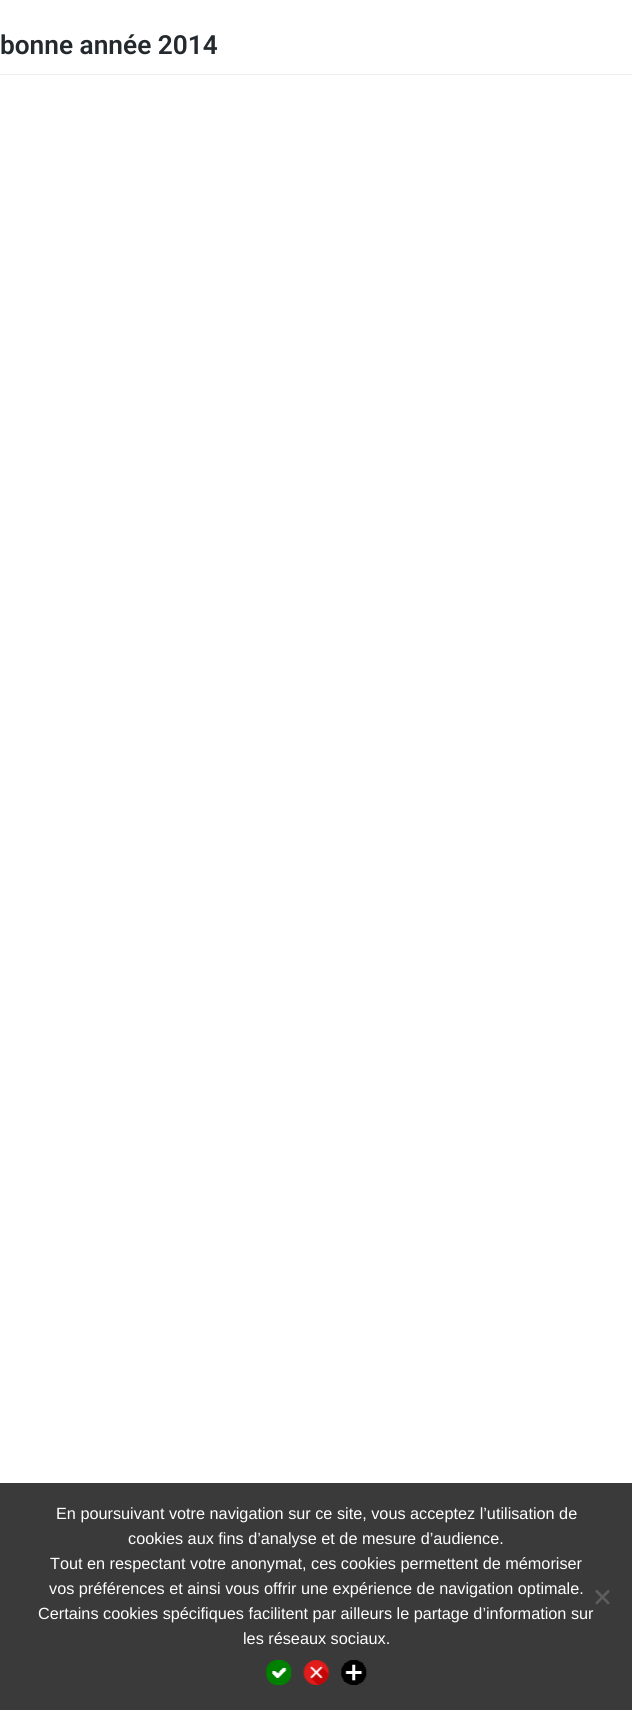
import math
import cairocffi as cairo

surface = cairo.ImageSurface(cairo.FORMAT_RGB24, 632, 1710)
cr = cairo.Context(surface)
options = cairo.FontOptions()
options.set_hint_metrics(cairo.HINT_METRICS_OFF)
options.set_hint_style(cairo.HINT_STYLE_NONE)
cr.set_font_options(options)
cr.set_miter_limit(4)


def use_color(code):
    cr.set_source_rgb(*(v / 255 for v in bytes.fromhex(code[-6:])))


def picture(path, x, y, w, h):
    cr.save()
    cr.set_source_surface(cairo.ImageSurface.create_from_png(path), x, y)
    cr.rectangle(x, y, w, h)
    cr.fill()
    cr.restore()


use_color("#ffffff")
cr.paint()
use_color("#eaecef")
cr.rectangle(0, 74, 632, 1)
cr.fill()
cr.select_font_face("Roboto SemiBold")
cr.set_font_size(26.25)
use_color("#24292e")
cr.move_to(0, 54)
cr.show_text("bonne année 2014")
use_color("#3a3a3a")
cr.rectangle(0, 1483, 632, 227)
cr.fill()
cr.select_font_face("Liberation Sans")
cr.set_font_size(16.25)
use_color("#ffffff")
cr.move_to(56, 1519)
cr.show_text("En poursuivant votre navigation sur ce site, vous acceptez l’utilisation de")
cr.move_to(128, 1544)
cr.show_text("cookies aux fins d’analyse et de mesure d’audience.")
cr.move_to(50, 1569)
cr.show_text("Tout en respectant votre anonymat, ces cookies permettent de mémoriser")
cr.move_to(49, 1594)
cr.show_text("vos préférences et ainsi vous offrir une expérience de navigation optimale.")
cr.move_to(38, 1619)
cr.show_text("Certains cookies spécifiques facilitent par ailleurs le partage d’information sur")
cr.move_to(243, 1644)
cr.show_text("les réseaux sociaux.")
use_color("#5d5d5d")
cr.new_path()
cr.move_to(608, 1589.5)
cr.line_to(610, 1591.5)
cr.line_to(597, 1604.5)
cr.line_to(595, 1603)
cr.close_path()
cr.fill()
cr.new_path()
cr.move_to(595, 1591.5)
cr.line_to(597, 1589.5)
cr.line_to(610, 1603)
cr.line_to(608, 1604.5)
cr.close_path()
cr.fill()
picture("img1.png", 266, 1660, 26, 25)
picture("img2.png", 303, 1660, 27, 25)
picture("img3.png", 341, 1660, 26, 25)
surface.write_to_png("result.png")
